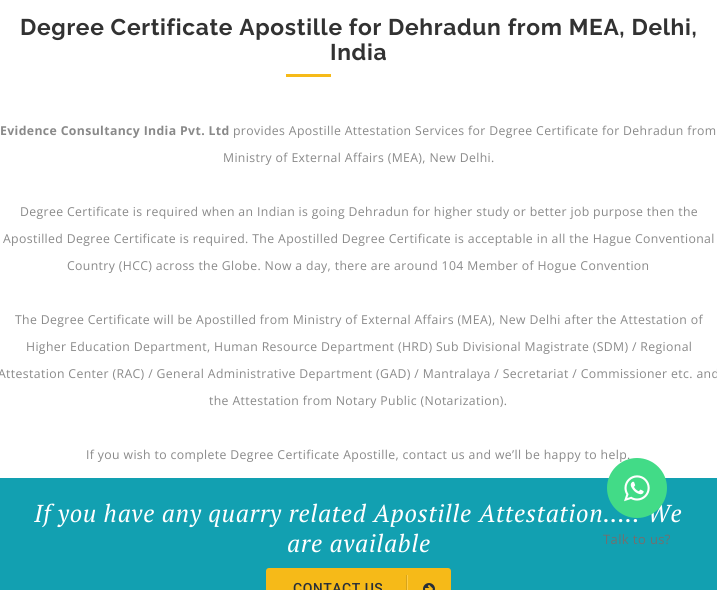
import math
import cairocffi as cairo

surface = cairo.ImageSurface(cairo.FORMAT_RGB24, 717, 590)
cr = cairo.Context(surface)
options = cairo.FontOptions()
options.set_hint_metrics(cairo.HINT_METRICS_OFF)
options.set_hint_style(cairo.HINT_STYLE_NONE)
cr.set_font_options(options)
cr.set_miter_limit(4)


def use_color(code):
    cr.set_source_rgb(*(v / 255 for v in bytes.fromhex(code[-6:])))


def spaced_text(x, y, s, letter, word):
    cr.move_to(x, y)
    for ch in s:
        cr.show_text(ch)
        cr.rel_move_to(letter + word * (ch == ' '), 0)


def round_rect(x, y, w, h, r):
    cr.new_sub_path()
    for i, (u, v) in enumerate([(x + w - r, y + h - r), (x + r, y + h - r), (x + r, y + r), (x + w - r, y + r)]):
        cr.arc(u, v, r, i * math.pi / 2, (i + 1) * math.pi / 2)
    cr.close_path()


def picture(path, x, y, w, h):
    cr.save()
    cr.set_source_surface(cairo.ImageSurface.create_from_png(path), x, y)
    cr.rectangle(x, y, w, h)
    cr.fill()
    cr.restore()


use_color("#ffffff")
cr.paint()
cr.select_font_face("Raleway", cairo.FONT_SLANT_NORMAL, cairo.FONT_WEIGHT_BOLD)
cr.set_font_size(22.75)
use_color("#323232")
spaced_text(20, 35, "Degree Certificate Apostille for Dehradun from MEA, Delhi,", 0.68, 0)
spaced_text(330, 60, "India", 0.68, 0)
use_color("#f6ba18")
cr.rectangle(286, 74, 45, 3)
cr.fill()
cr.select_font_face("Open Sans", cairo.FONT_SLANT_NORMAL, cairo.FONT_WEIGHT_BOLD)
cr.set_font_size(12.25)
use_color("#898989")
spaced_text(0, 135, "Evidence Consultancy India Pvt. Ltd", 0.37, 0)
cr.select_font_face("Open Sans")
spaced_text(233, 135, "provides Apostille Attestation Services for Degree Certificate for Dehradun from", 0.37, 0)
spaced_text(223, 162, "Ministry of External Affairs (MEA), New Delhi.", 0.37, 0)
spaced_text(20, 216, "Degree Certificate is required when an Indian is going Dehradun for higher study or better job purpose then the", 0.37, 0)
spaced_text(3, 243, "Apostilled Degree Certificate is required. The Apostilled Degree Certificate is acceptable in all the Hague Conventional", 0.37, 0)
spaced_text(67, 270, "Country (HCC) across the Globe. Now a day, there are around 104 Member of Hogue Convention", 0.37, 0)
spaced_text(15, 324, "The Degree Certificate will be Apostilled from Ministry of External Affairs (MEA), New Delhi after the Attestation of", 0.37, 0)
spaced_text(26, 351, "Higher Education Department, Human Resource Department (HRD) Sub Divisional Magistrate (SDM) / Regional", 0.37, 0)
spaced_text(-2, 378, "Attestation Center (RAC) / General Administrative Department (GAD) / Mantralaya / Secretariat / Commissioner etc. and", 0.37, 0)
spaced_text(209, 405, "the Attestation from Notary Public (Notarization).", 0.37, 0)
spaced_text(86, 459, "If you wish to complete Degree Certificate Apostille, contact us and we’ll be happy to help.", 0.37, 0)
use_color("#12a0b1")
cr.rectangle(0, 478, 717, 112)
cr.fill()
cr.select_font_face("PT Serif", cairo.FONT_SLANT_ITALIC)
cr.set_font_size(24.5)
use_color("#ffffff")
spaced_text(34, 522, "If you have any quarry related Apostille Attestation..... We", 0.73, 0)
spaced_text(287, 552, "are available", 0.73, 0)
use_color("#f6ba18")
round_rect(266, 568, 185, 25, 3)
cr.fill()
cr.select_font_face("Roboto Medium")
cr.set_font_size(14)
use_color("#282f39")
spaced_text(293, 593, "CONTACT US", 0.5, 0)
use_color("#ffcd47")
cr.rectangle(407, 575, 1, 15)
cr.fill()
use_color("#d7a41b")
cr.rectangle(406, 575, 1, 15)
cr.fill()
picture("img1.png", 423, 583, 12, 7)
use_color("#42db87")
cr.arc(637, 488, 30, 0, 2 * math.pi)
cr.fill()
picture("img2.png", 624, 475, 26, 27)
cr.select_font_face("Open Sans")
cr.set_font_size(13)
use_color("#707070")
spaced_text(603, 544, "Talk to us?", 0.4, 0)
surface.write_to_png("result.png")
